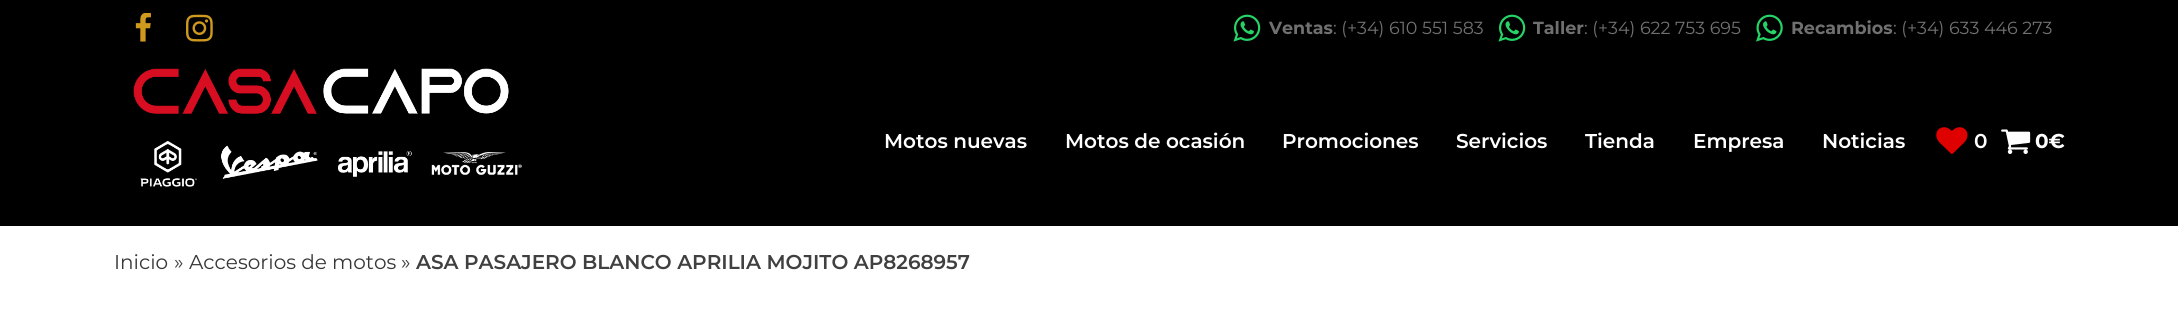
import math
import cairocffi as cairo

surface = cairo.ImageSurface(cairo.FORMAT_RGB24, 2178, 328)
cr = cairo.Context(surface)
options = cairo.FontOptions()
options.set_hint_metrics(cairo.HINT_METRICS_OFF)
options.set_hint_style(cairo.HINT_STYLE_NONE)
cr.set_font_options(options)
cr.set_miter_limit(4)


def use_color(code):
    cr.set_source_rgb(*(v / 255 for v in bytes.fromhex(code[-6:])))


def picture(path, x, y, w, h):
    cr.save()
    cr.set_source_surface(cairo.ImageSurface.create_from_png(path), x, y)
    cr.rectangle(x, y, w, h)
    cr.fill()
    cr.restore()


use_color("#ffffff")
cr.paint()
use_color("#000000")
cr.rectangle(0, 0, 2178, 226)
cr.fill()
picture("img1.png", 135, 13, 16, 29)
picture("img2.png", 186, 14, 27, 28)
picture("img3.png", 1233, 14, 28, 28)
cr.select_font_face("Montserrat", cairo.FONT_SLANT_NORMAL, cairo.FONT_WEIGHT_BOLD)
cr.set_font_size(17.5)
use_color("#707070")
cr.move_to(1269, 34)
cr.show_text("Ventas")
cr.select_font_face("Montserrat")
cr.move_to(1333, 34)
cr.show_text(": (+34) 610 551 583")
picture("img3.png", 1498, 14, 28, 28)
cr.select_font_face("Montserrat", cairo.FONT_SLANT_NORMAL, cairo.FONT_WEIGHT_BOLD)
cr.move_to(1533, 34)
cr.show_text("Taller")
cr.select_font_face("Montserrat")
cr.move_to(1584, 34)
cr.show_text(": (+34) 622 753 695")
picture("img4.png", 1756, 14, 27, 28)
cr.select_font_face("Montserrat", cairo.FONT_SLANT_NORMAL, cairo.FONT_WEIGHT_BOLD)
cr.move_to(1791, 34)
cr.show_text("Recambios")
cr.select_font_face("Montserrat")
cr.move_to(1893, 34)
cr.show_text(": (+34) 633 446 273")
picture("img5.png", 133, 68, 376, 46)
picture("img6.png", 140, 141, 57, 46)
picture("img7.png", 221, 145, 97, 34)
picture("img8.png", 338, 151, 74, 26)
picture("img9.png", 431, 152, 91, 23)
cr.select_font_face("Montserrat SemiBold")
cr.set_font_size(20)
use_color("#ffffff")
cr.move_to(884, 148)
cr.show_text("Motos nuevas")
cr.move_to(1065, 148)
cr.show_text("Motos de ocasión")
cr.move_to(1282, 148)
cr.show_text("Promociones")
cr.move_to(1456, 148)
cr.show_text("Servicios")
cr.move_to(1585, 148)
cr.show_text("Tienda")
cr.move_to(1693, 148)
cr.show_text("Empresa")
cr.move_to(1822, 148)
cr.show_text("Noticias")
picture("img10.png", 1936, 127, 32, 27)
cr.move_to(1974, 148)
cr.show_text("0")
picture("img11.png", 2001, 129, 30, 25)
cr.select_font_face("Montserrat", cairo.FONT_SLANT_NORMAL, cairo.FONT_WEIGHT_BOLD)
cr.move_to(2035, 148)
cr.show_text("0€")
cr.select_font_face("Montserrat")
use_color("#363636")
cr.move_to(114, 269)
cr.show_text("Inicio")
use_color("#404040")
cr.move_to(174, 269)
cr.show_text("»")
use_color("#363636")
cr.move_to(189, 269)
cr.show_text("Accesorios de motos")
use_color("#404040")
cr.move_to(401, 269)
cr.show_text("»")
cr.select_font_face("Montserrat SemiBold")
cr.move_to(416, 269)
cr.show_text("ASA PASAJERO BLANCO APRILIA MOJITO AP8268957")
surface.write_to_png("result.png")
